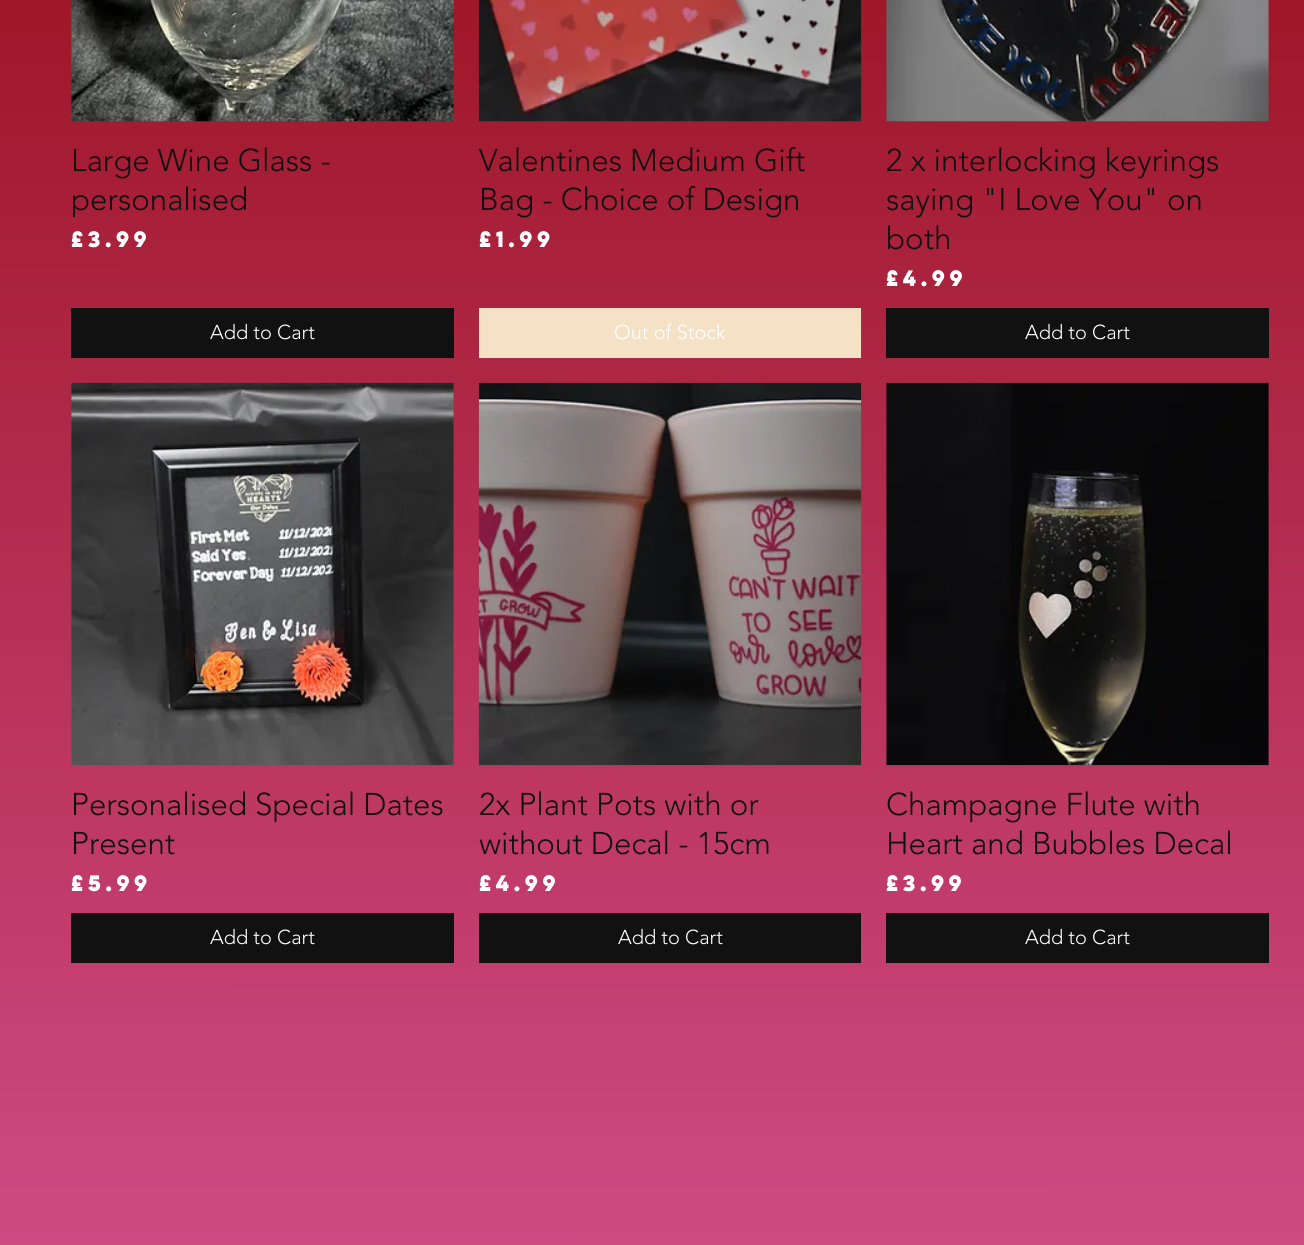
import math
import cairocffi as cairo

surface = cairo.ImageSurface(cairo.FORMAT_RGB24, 1304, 1245)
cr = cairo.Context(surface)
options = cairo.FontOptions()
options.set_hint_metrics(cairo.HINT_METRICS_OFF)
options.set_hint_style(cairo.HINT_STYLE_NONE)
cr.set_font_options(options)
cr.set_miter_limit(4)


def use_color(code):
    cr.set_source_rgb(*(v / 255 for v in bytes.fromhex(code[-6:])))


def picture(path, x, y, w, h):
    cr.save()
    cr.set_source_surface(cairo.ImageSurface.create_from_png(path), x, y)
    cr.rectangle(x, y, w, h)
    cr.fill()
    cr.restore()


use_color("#ffffff")
cr.paint()
gradient = cairo.LinearGradient(653, 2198, 652, -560)
gradient.add_color_stop_rgba(0, 0.945, 0.443, 0.788, 1)
gradient.add_color_stop_rgba(1, 0.545, 0, 0, 1)
cr.set_source(gradient)
cr.rectangle(0, 0, 1304, 1245)
cr.fill()
picture("img1.png", 71, 0, 383, 122)
cr.select_font_face("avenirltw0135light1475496 Light")
cr.set_font_size(31.25)
use_color("#111111")
cr.move_to(71, 171)
cr.show_text("Large Wine Glass -")
cr.move_to(71, 210)
cr.show_text("personalised")
cr.select_font_face("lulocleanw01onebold", cairo.FONT_SLANT_NORMAL, cairo.FONT_WEIGHT_BOLD)
cr.set_font_size(20)
use_color("#ffffff")
cr.move_to(71, 247)
cr.show_text("£3.99")
use_color("#111111")
cr.rectangle(71, 308, 383, 50)
cr.fill()
cr.select_font_face("avenirltw0135light1475496 Light")
use_color("#ffffff")
cr.move_to(210, 339)
cr.show_text("Add to Cart")
picture("img2.png", 478, 0, 384, 122)
cr.set_font_size(31.25)
use_color("#111111")
cr.move_to(479, 171)
cr.show_text("Valentines Medium Gift")
cr.move_to(479, 210)
cr.show_text("Bag - Choice of Design")
cr.select_font_face("lulocleanw01onebold", cairo.FONT_SLANT_NORMAL, cairo.FONT_WEIGHT_BOLD)
cr.set_font_size(20)
use_color("#ffffff")
cr.move_to(479, 247)
cr.show_text("£1.99")
use_color("#f5e1c6")
cr.rectangle(479, 308, 382, 50)
cr.fill()
cr.select_font_face("avenirltw0135light1475496 Light")
use_color("#ffffff")
cr.move_to(614, 339)
cr.show_text("Out of Stock")
picture("img3.png", 886, 0, 383, 122)
cr.set_font_size(31.25)
use_color("#111111")
cr.move_to(886, 171)
cr.show_text("2 x interlocking keyrings")
cr.move_to(886, 210)
cr.show_text("saying \"I Love You\" on")
cr.move_to(886, 249)
cr.show_text("both")
cr.select_font_face("lulocleanw01onebold", cairo.FONT_SLANT_NORMAL, cairo.FONT_WEIGHT_BOLD)
cr.set_font_size(20)
use_color("#ffffff")
cr.move_to(886, 286)
cr.show_text("£4.99")
use_color("#111111")
cr.rectangle(886, 308, 383, 50)
cr.fill()
cr.select_font_face("avenirltw0135light1475496 Light")
use_color("#ffffff")
cr.move_to(1025, 339)
cr.show_text("Add to Cart")
picture("img4.png", 71, 382, 383, 384)
cr.set_font_size(31.25)
use_color("#111111")
cr.move_to(71, 815)
cr.show_text("Personalised Special Dates")
cr.move_to(71, 854)
cr.show_text("Present")
cr.select_font_face("lulocleanw01onebold", cairo.FONT_SLANT_NORMAL, cairo.FONT_WEIGHT_BOLD)
cr.set_font_size(20)
use_color("#ffffff")
cr.move_to(71, 891)
cr.show_text("£5.99")
use_color("#111111")
cr.rectangle(71, 913, 383, 50)
cr.fill()
cr.select_font_face("avenirltw0135light1475496 Light")
use_color("#ffffff")
cr.move_to(210, 944)
cr.show_text("Add to Cart")
picture("img5.png", 478, 382, 384, 384)
cr.set_font_size(31.25)
use_color("#111111")
cr.move_to(479, 815)
cr.show_text("2x Plant Pots with or")
cr.move_to(479, 854)
cr.show_text("without Decal - 15cm")
cr.select_font_face("lulocleanw01onebold", cairo.FONT_SLANT_NORMAL, cairo.FONT_WEIGHT_BOLD)
cr.set_font_size(20)
use_color("#ffffff")
cr.move_to(479, 891)
cr.show_text("£4.99")
use_color("#111111")
cr.rectangle(479, 913, 382, 50)
cr.fill()
cr.select_font_face("avenirltw0135light1475496 Light")
use_color("#ffffff")
cr.move_to(618, 944)
cr.show_text("Add to Cart")
picture("img6.png", 886, 382, 383, 384)
cr.set_font_size(31.25)
use_color("#111111")
cr.move_to(886, 815)
cr.show_text("Champagne Flute with")
cr.move_to(886, 854)
cr.show_text("Heart and Bubbles Decal")
cr.select_font_face("lulocleanw01onebold", cairo.FONT_SLANT_NORMAL, cairo.FONT_WEIGHT_BOLD)
cr.set_font_size(20)
use_color("#ffffff")
cr.move_to(886, 891)
cr.show_text("£3.99")
use_color("#111111")
cr.rectangle(886, 913, 383, 50)
cr.fill()
cr.select_font_face("avenirltw0135light1475496 Light")
use_color("#ffffff")
cr.move_to(1025, 944)
cr.show_text("Add to Cart")
surface.write_to_png("result.png")
